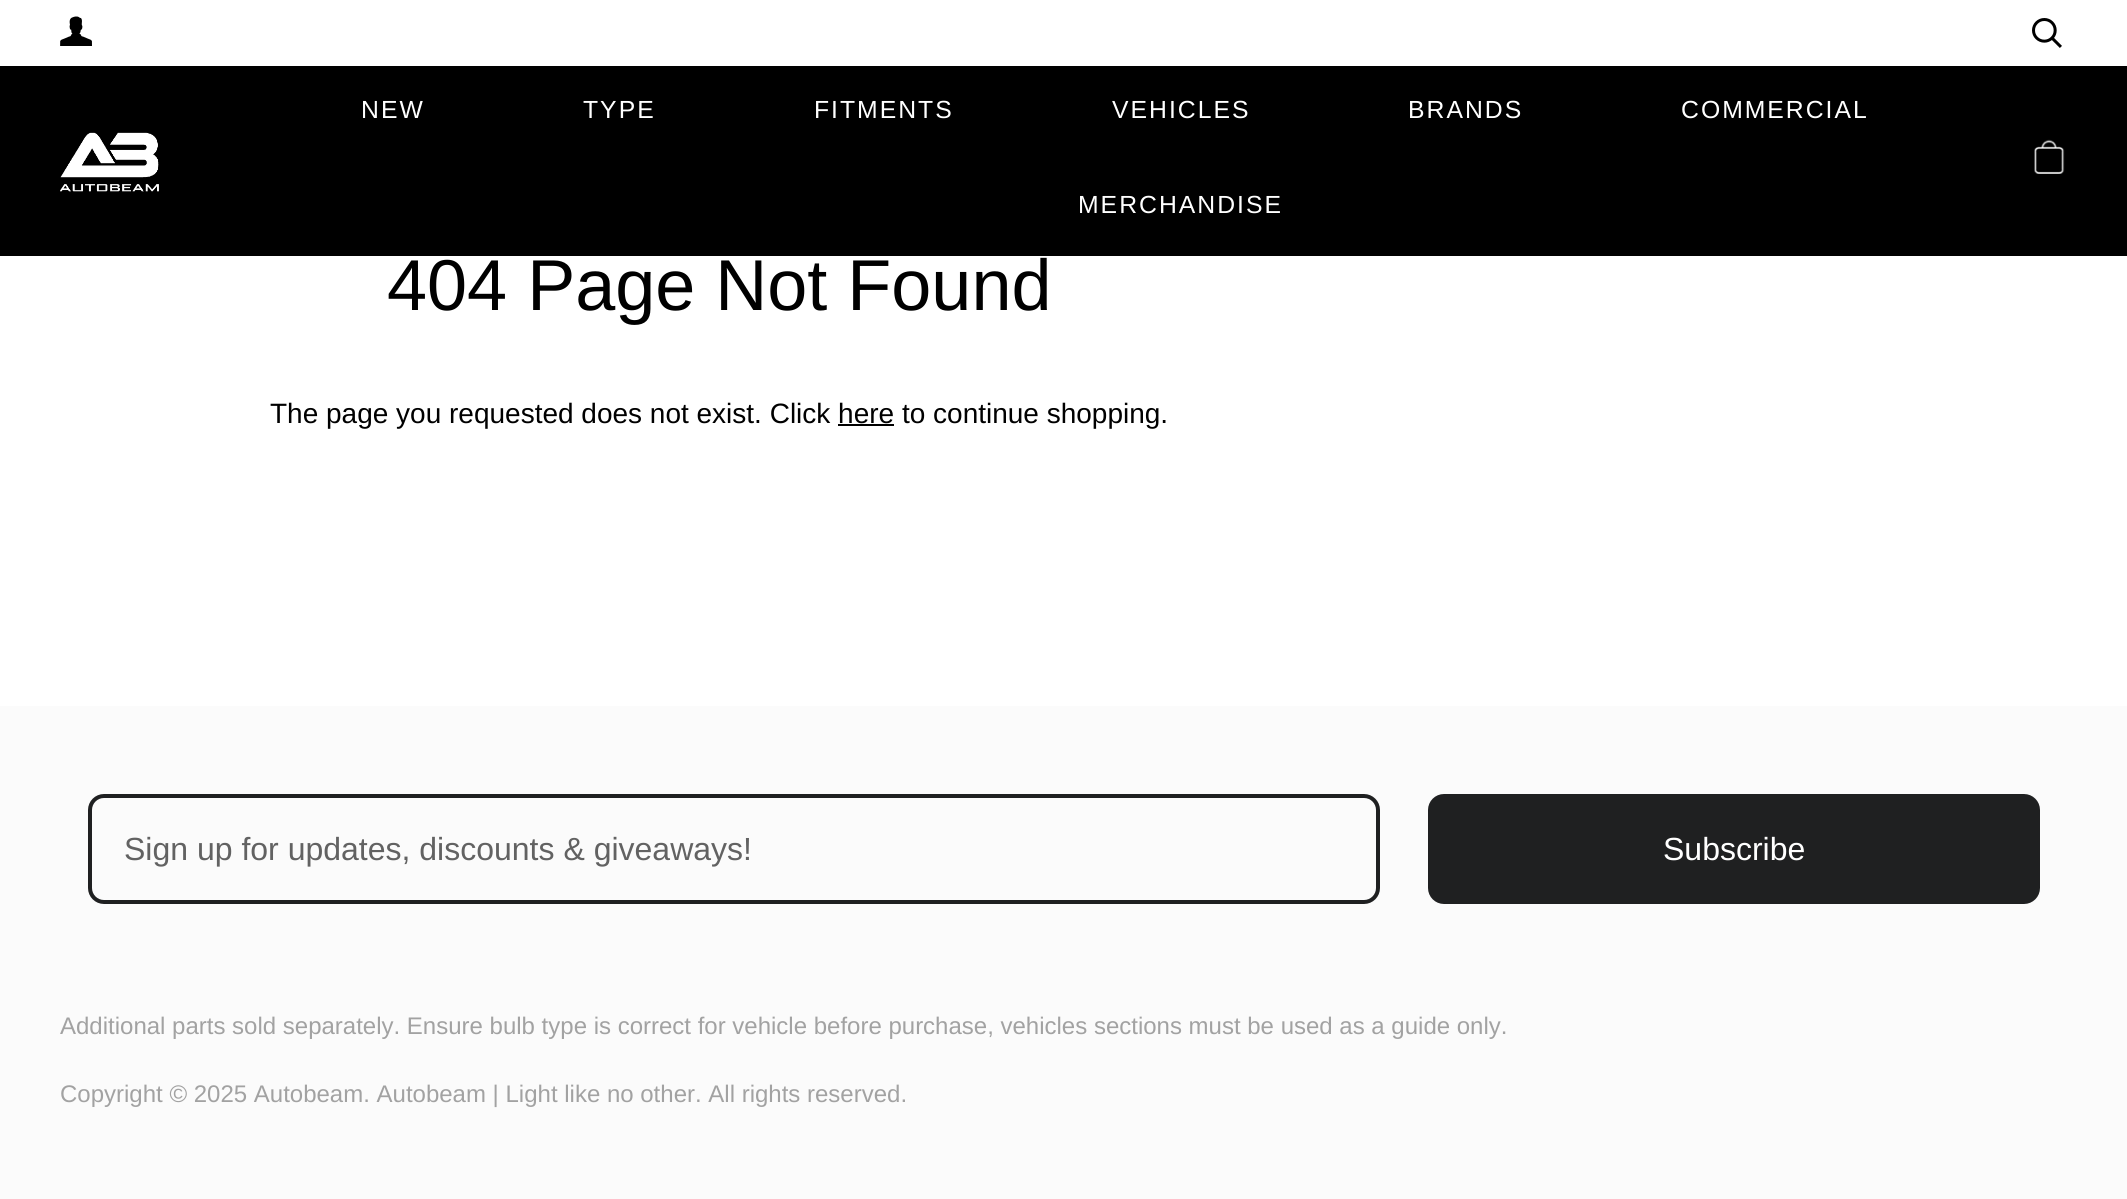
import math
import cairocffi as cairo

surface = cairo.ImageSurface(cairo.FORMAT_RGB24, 2127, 1199)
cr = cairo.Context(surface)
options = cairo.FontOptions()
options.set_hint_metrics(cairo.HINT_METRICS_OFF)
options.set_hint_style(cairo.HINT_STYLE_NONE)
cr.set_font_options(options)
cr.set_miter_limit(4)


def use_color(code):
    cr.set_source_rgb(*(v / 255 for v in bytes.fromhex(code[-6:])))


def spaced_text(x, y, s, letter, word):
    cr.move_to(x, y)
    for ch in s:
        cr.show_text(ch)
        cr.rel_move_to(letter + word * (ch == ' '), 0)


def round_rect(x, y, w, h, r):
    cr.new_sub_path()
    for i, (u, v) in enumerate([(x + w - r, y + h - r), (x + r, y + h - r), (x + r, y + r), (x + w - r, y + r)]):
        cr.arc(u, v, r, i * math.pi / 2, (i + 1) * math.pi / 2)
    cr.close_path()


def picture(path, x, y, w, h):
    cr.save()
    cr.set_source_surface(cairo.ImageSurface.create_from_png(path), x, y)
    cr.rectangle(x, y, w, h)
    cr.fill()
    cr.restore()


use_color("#ffffff")
cr.paint()
picture("img1.png", 60, 16, 32, 30)
picture("img2.png", 2032, 18, 30, 30)
use_color("#000000")
cr.rectangle(0, 66, 2127, 190)
cr.fill()
picture("img3.png", 60, 132, 99, 60)
cr.select_font_face("Liberation Sans")
cr.set_font_size(24.75)
use_color("#ffffff")
spaced_text(361, 118, "NEW", 2, 0)
spaced_text(583, 118, "TYPE", 2, 0)
spaced_text(814, 118, "FITMENTS", 2, 0)
spaced_text(1112, 118, "VEHICLES", 2, 0)
spaced_text(1408, 118, "BRANDS", 2, 0)
spaced_text(1681, 118, "COMMERCIAL", 2, 0)
spaced_text(1078, 213, "MERCHANDISE", 2, 0)
picture("img4.png", 2034, 139, 31, 35)
cr.set_font_size(72)
use_color("#000000")
cr.move_to(387, 310)
cr.show_text("404 Page Not Found")
cr.set_font_size(28)
cr.move_to(270, 423)
cr.show_text("The page you requested does not exist. Click here to continue shopping.")
cr.rectangle(838, 424, 56, 2)
cr.fill()
use_color("#fbfbfb")
cr.rectangle(0, 706, 2127, 493)
cr.fill()
round_rect(90, 796, 1288, 106, 14)
use_color("#1f2021")
cr.set_line_width(4)
cr.stroke()
cr.set_font_size(32)
use_color("#626262")
cr.move_to(124, 860)
cr.show_text("Sign up for updates, discounts & giveaways!")
use_color("#1f2021")
round_rect(1430, 796, 608, 106, 14)
cr.fill_preserve()
cr.stroke()
use_color("#ffffff")
cr.move_to(1663, 860)
cr.show_text("Subscribe")
cr.set_font_size(24)
use_color("#a2a2a2")
cr.move_to(60, 1034)
cr.show_text("Additional parts sold separately. Ensure bulb type is correct for vehicle before purchase, vehicles sections must be used as a guide only.")
cr.move_to(60, 1102)
cr.show_text("Copyright © 2025 Autobeam. Autobeam | Light like no other. All rights reserved.")
surface.write_to_png("result.png")
